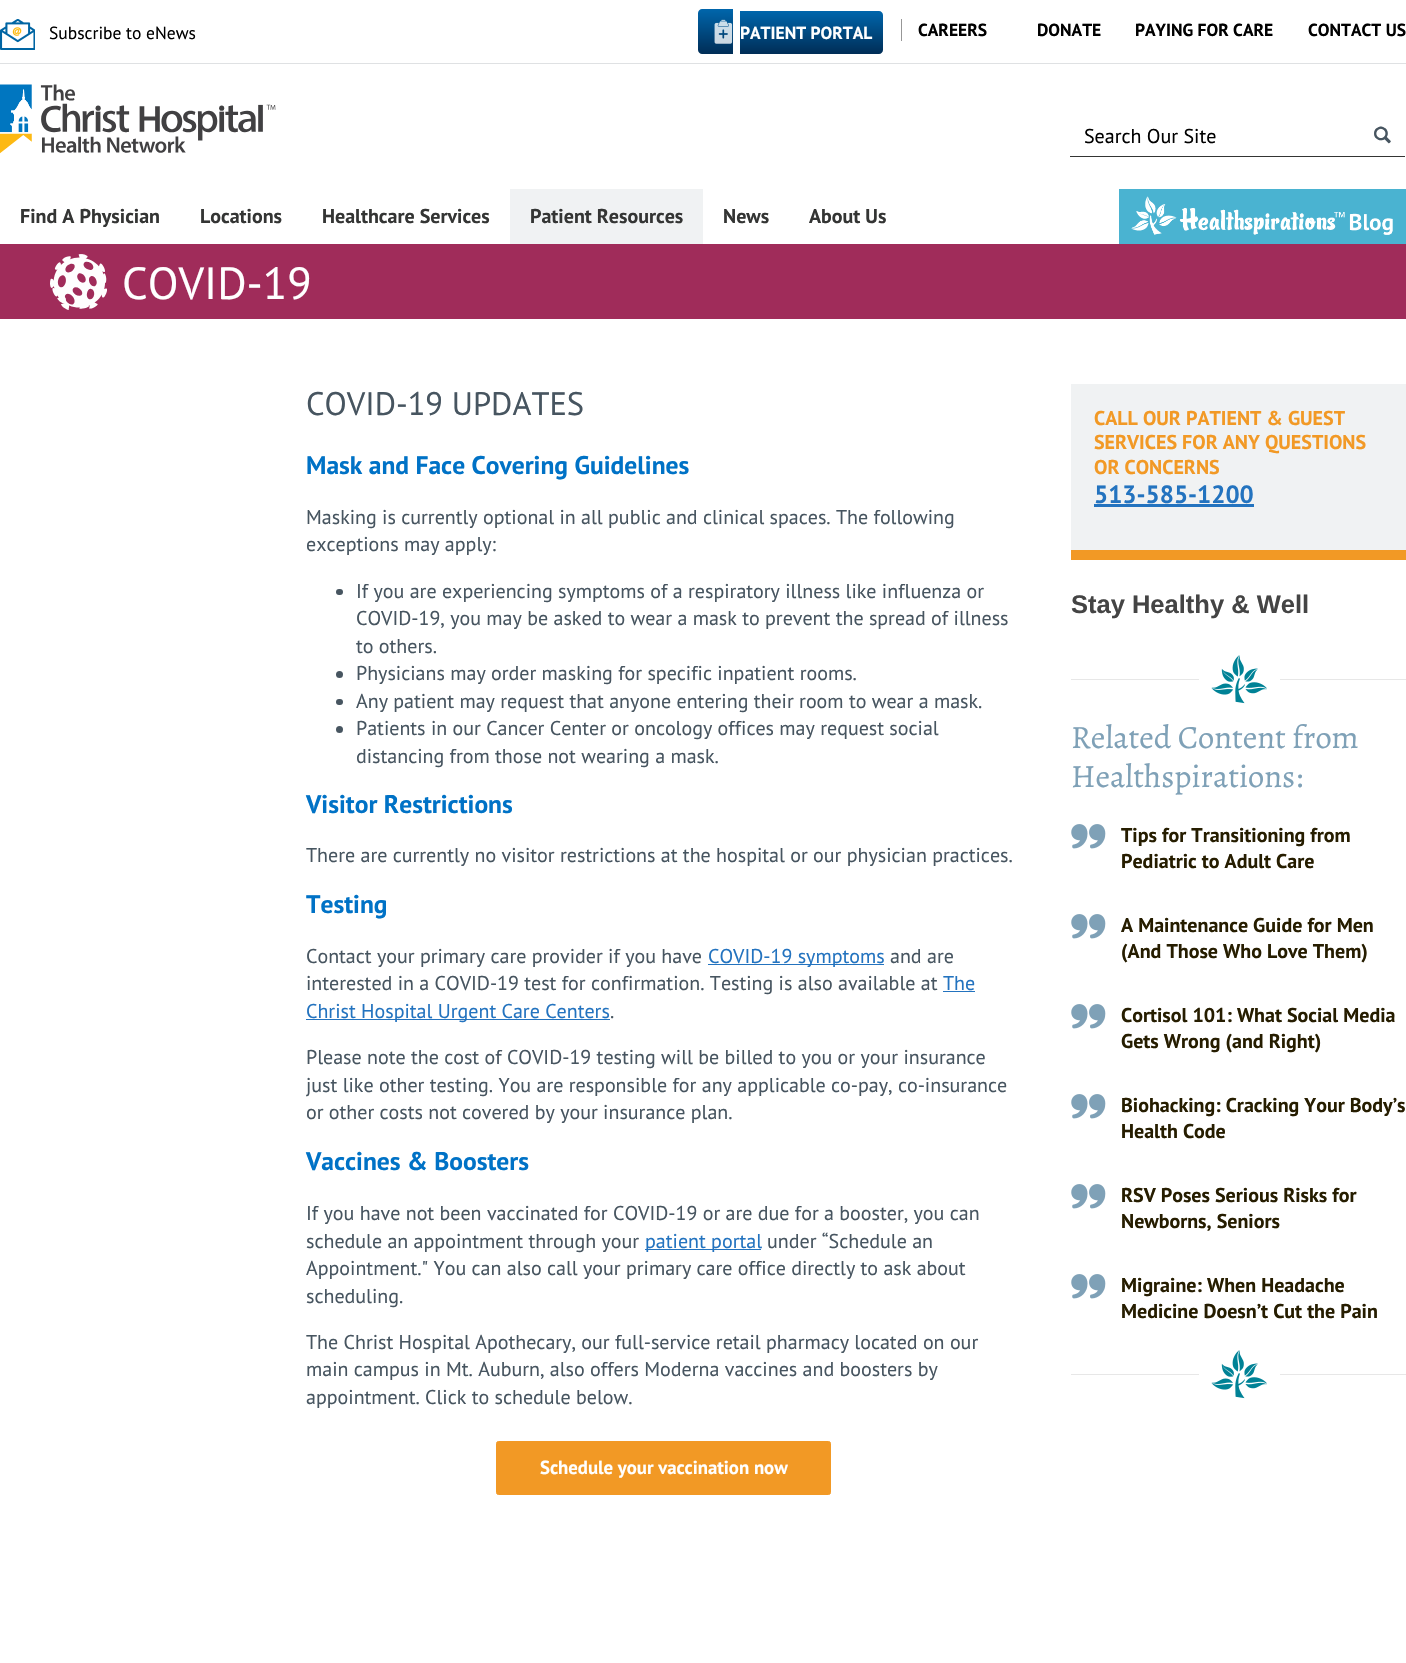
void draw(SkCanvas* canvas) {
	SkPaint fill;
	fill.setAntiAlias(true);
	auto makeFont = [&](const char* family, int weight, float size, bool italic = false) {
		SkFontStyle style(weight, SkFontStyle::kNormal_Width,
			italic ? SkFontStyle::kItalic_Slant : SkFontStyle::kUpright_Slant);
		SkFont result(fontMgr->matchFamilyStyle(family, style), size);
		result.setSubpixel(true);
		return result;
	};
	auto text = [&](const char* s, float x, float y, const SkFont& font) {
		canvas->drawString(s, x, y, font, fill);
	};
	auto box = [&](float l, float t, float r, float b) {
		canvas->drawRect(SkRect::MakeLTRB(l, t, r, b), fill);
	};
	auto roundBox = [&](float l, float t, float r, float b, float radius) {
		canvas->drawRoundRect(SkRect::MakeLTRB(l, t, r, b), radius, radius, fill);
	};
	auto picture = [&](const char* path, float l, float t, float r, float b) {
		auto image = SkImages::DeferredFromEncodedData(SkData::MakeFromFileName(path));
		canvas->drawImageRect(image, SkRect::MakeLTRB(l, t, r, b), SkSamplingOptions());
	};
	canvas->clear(0xFFFFFFFF);
	fill.setColor(0xFFDFE1E3);
	box(0, 63, 1406, 64);
	picture("image0.png", 0, 19, 35, 50);
	{
		const SkColor colors[] = {0xFF0066AC, 0xFF002D56};
		const float stops[] = {0, 1};
		const SkPoint ends[] = {{715, 9}, {715, 54}};
		fill.setShader(SkGradientShader::MakeLinear(ends, colors, stops, 2, SkTileMode::kClamp));
		fill.setAlpha(255);
	}
	canvas->drawPath(SkPathBuilder().moveTo(702, 9).lineTo(733, 9).lineTo(733, 54).lineTo(702, 54).cubicTo(700, 54, 698, 52, 698, 50).lineTo(698, 13).cubicTo(698, 11, 700, 9, 702, 9).close().detach(), fill);
	{
		const SkColor colors[] = {0xFF0066AC, 0xFF002D56};
		const float stops[] = {0, 1};
		const SkPoint ends[] = {{811, 11}, {811, 54}};
		fill.setShader(SkGradientShader::MakeLinear(ends, colors, stops, 2, SkTileMode::kClamp));
		fill.setAlpha(255);
	}
	canvas->drawPath(SkPathBuilder().moveTo(740, 11).lineTo(879, 11).cubicTo(881, 11, 883, 13, 883, 15).lineTo(883, 50).cubicTo(883, 52, 881, 54, 879, 54).lineTo(740, 54).close().detach(), fill);
	picture("image1.png", 714, 19, 733, 44);
	fill.setShader(nullptr);
	fill.setColor(0xFF979797);
	box(901, 19, 902, 41);
	picture("image2.png", 0, 84, 276, 154);
	fill.setColor(0xFF343534);
	box(1070, 156, 1405, 157);
	fill.setColor(0xFFF0F2F3);
	box(510, 189, 703, 244);
	fill.setColor(0xFF4AB3D1);
	box(1119, 189, 1406, 244);
	picture("image3.png", 1131, 196, 1393, 235);
	fill.setColor(0xFFA02C5A);
	box(0, 244, 1406, 319);
	picture("image4.png", 50, 254, 107, 310);
	fill.setColor(0xFF475560);
	roundBox(336, 589, 343, 595, 3);
	canvas->drawCircle(339.5f, 674.5f, 3.5f, fill);
	roundBox(336, 699, 343, 705, 3);
	canvas->drawCircle(339.5f, 729.5f, 3.5f, fill);
	fill.setColor(0xFF2373BF);
	box(708, 964, 884, 965);
	box(943, 991, 975, 992);
	box(306, 1019, 610, 1020);
	box(645, 1249, 761, 1250);
	fill.setColor(0xFFF29925);
	canvas->drawRoundRect(SkRect::MakeLTRB(496.5f, 1441.5f, 830.5f, 1494.5f), 2, 2, fill);
	fill.setStyle(SkPaint::kStroke_Style);
	fill.setStrokeWidth(1);
	canvas->drawRoundRect(SkRect::MakeLTRB(496.5f, 1441.5f, 830.5f, 1494.5f), 2, 2, fill);
	fill.setStyle(SkPaint::kFill_Style);
	fill.setColor(0xFFF0F2F3);
	box(1071, 384, 1406, 550);
	fill.setColor(0xFFF29925);
	box(1071, 550, 1406, 560);
	fill.setColor(0xFF2373BF);
	box(1094, 504, 1254, 507);
	fill.setColor(0xFFE7E7E7);
	box(1071, 679, 1406, 680);
	fill.setColor(0xFFFFFFFF);
	box(1199, 679, 1280, 680);
	picture("image5.png", 1211, 655, 1267, 704);
	picture("image6.png", 1071, 824, 1106, 849);
	picture("image6.png", 1071, 914, 1106, 939);
	picture("image6.png", 1071, 1004, 1106, 1029);
	picture("image6.png", 1071, 1094, 1106, 1119);
	picture("image6.png", 1071, 1184, 1106, 1209);
	picture("image6.png", 1071, 1274, 1106, 1299);
	fill.setColor(0xFFE7E7E7);
	box(1071, 1374, 1406, 1375);
	fill.setColor(0xFFFFFFFF);
	box(1199, 1374, 1280, 1375);
	picture("image5.png", 1211, 1350, 1267, 1399);
	auto font1 = makeFont("PT Sans", 400, 17.5f);
	fill.setColor(0xFF000000);
	text("Subscribe to eNews", 49, 39, font1);
	auto font2 = makeFont("PT Sans", 700, 17.5f);
	fill.setColor(0xFFFFFFFF);
	text("PATIENT PORTAL", 740, 39, font2);
	fill.setColor(0xFF000000);
	text("CAREERS", 918, 36, font2);
	text("DONATE", 1037, 36, font2);
	text("PAYING FOR CARE", 1135, 36, font2);
	text("CONTACT US", 1308, 36, font2);
	auto font3 = makeFont("PT Sans", 400, 20);
	text("Search Our Site", 1084, 143, font3);
	auto font4 = makeFont("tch", 400, 17.5f);
	fill.setColor(0xFF475560);
	text("8", 1374, 143, font4);
	auto font5 = makeFont("PT Sans", 700, 20);
	fill.setColor(0xFF343534);
	text("Find A Physician", 20, 223, font5);
	text("Locations", 200, 223, font5);
	text("Healthcare Services", 322, 223, font5);
	text("Patient Resources", 530, 223, font5);
	text("News", 723, 223, font5);
	text("About Us", 809, 223, font5);
	auto font6 = makeFont("PT Sans", 400, 45);
	fill.setColor(0xFFFFFFFF);
	text("COVID-19", 122, 299, font6);
	auto font7 = makeFont("PT Sans", 400, 32.5f);
	fill.setColor(0xFF475560);
	text("COVID-19 UPDATES", 306, 415, font7);
	auto font8 = makeFont("PT Sans", 700, 25.5f);
	fill.setColor(0xFF0072C6);
	text("Mask and Face Covering Guidelines", 306, 474, font8);
	fill.setColor(0xFF475560);
	text("Masking is currently optional in all public and clinical spaces. The following", 306, 524, font3);
	text("exceptions may apply:", 306, 551, font3);
	text("If you are experiencing symptoms of a respiratory illness like influenza or", 356, 598, font3);
	text("COVID-19, you may be asked to wear a mask to prevent the spread of illness", 356, 625, font3);
	text("to others.", 356, 653, font3);
	text("Physicians may order masking for specific inpatient rooms.", 356, 680, font3);
	text("Any patient may request that anyone entering their room to wear a mask.", 356, 708, font3);
	text("Patients in our Cancer Center or oncology offices may request social", 356, 735, font3);
	text("distancing from those not wearing a mask.", 356, 763, font3);
	fill.setColor(0xFF0072C6);
	text("Visitor Restrictions", 306, 813, font8);
	fill.setColor(0xFF475560);
	text("There are currently no visitor restrictions at the hospital or our physician practices.", 306, 862, font3);
	fill.setColor(0xFF0072C6);
	text("Testing", 306, 913, font8);
	fill.setColor(0xFF475560);
	text("Contact your primary care provider if you have", 306, 963, font3);
	fill.setColor(0xFF2373BF);
	text("COVID-19 symptoms", 708, 963, font3);
	fill.setColor(0xFF475560);
	text("and are", 890, 963, font3);
	text("interested in a COVID-19 test for confirmation. Testing is also available at", 306, 990, font3);
	fill.setColor(0xFF2373BF);
	text("The", 943, 990, font3);
	text("Christ Hospital Urgent Care Centers", 306, 1018, font3);
	fill.setColor(0xFF475560);
	text(".", 610, 1018, font3);
	text("Please note the cost of COVID-19 testing will be billed to you or your insurance", 306, 1064, font3);
	text("just like other testing. You are responsible for any applicable co-pay, co-insurance", 306, 1092, font3);
	text("or other costs not covered by your insurance plan.", 306, 1119, font3);
	fill.setColor(0xFF0072C6);
	text("Vaccines & Boosters", 306, 1170, font8);
	fill.setColor(0xFF475560);
	text("If you have not been vaccinated for COVID-19 or are due for a booster, you can", 306, 1220, font3);
	text("schedule an appointment through your", 306, 1248, font3);
	fill.setColor(0xFF2373BF);
	text("patient portal", 645, 1248, font3);
	fill.setColor(0xFF475560);
	text("under “Schedule an", 767, 1248, font3);
	text("Appointment.\" You can also call your primary care office directly to ask about", 306, 1275, font3);
	text("scheduling.", 306, 1303, font3);
	text("The Christ Hospital Apothecary, our full-service retail pharmacy located on our", 306, 1349, font3);
	text("main campus in Mt. Auburn, also offers Moderna vaccines and boosters by", 306, 1376, font3);
	text("appointment. Click to schedule below.", 306, 1404, font3);
	auto font9 = makeFont("PT Sans", 700, 18.75f);
	fill.setColor(0xFFFFFFFF);
	text("Schedule your vaccination now", 540, 1474, font9);
	fill.setColor(0xFFF29925);
	text("CALL OUR PATIENT & GUEST", 1094, 425, font5);
	text("SERVICES FOR ANY QUESTIONS", 1094, 449, font5);
	text("OR CONCERNS", 1094, 474, font5);
	auto font10 = makeFont("PT Sans", 700, 25);
	fill.setColor(0xFF2373BF);
	text("513-585-1200", 1094, 503, font10);
	auto font11 = makeFont("Liberation Sans", 700, 25.5f);
	fill.setColor(0xFF444444);
	text("Stay Healthy & Well", 1071, 613, font11);
	auto font12 = makeFont("Alegreya", 400, 32.5f);
	fill.setColor(0xFF7FA1B7);
	text("Related Content from", 1071, 748, font12);
	text("Healthspirations:", 1071, 787, font12);
	fill.setColor(0xFF261D00);
	text("Tips for Transitioning from", 1121, 842, font5);
	text("Pediatric to Adult Care", 1121, 868, font5);
	text("A Maintenance Guide for Men", 1121, 932, font5);
	text("(And Those Who Love Them)", 1121, 958, font5);
	text("Cortisol 101: What Social Media", 1121, 1022, font5);
	text("Gets Wrong (and Right)", 1121, 1048, font5);
	text("Biohacking: Cracking Your Body’s", 1121, 1112, font5);
	text("Health Code", 1121, 1138, font5);
	text("RSV Poses Serious Risks for", 1121, 1202, font5);
	text("Newborns, Seniors", 1121, 1228, font5);
	text("Migraine: When Headache", 1121, 1292, font5);
	text("Medicine Doesn’t Cut the Pain", 1121, 1318, font5);
}
